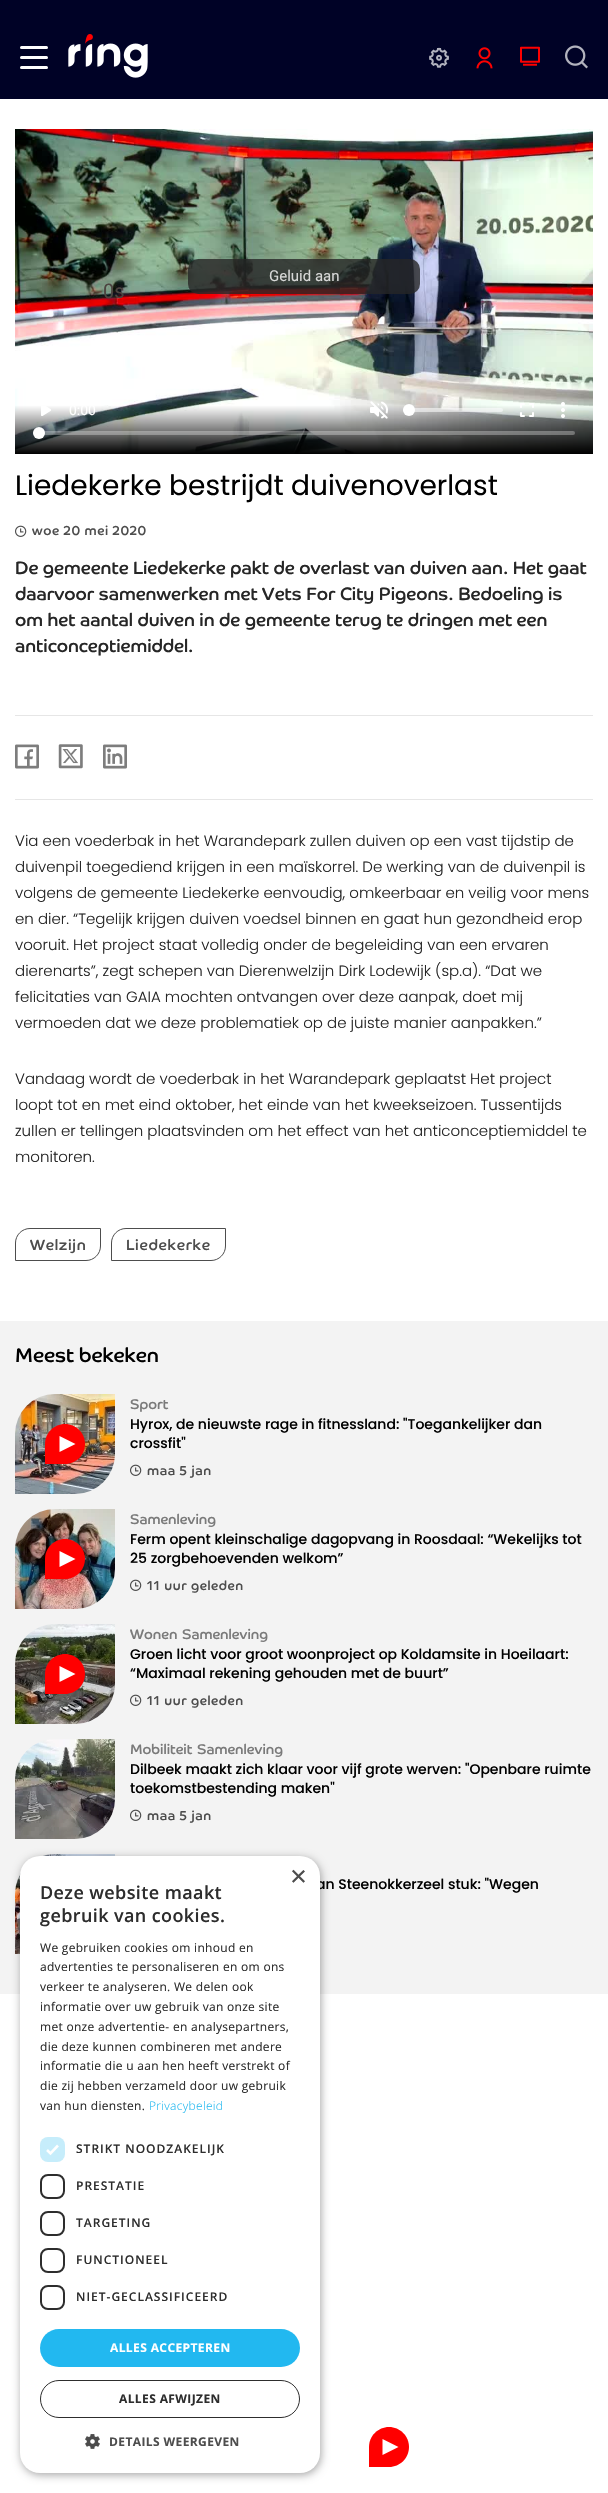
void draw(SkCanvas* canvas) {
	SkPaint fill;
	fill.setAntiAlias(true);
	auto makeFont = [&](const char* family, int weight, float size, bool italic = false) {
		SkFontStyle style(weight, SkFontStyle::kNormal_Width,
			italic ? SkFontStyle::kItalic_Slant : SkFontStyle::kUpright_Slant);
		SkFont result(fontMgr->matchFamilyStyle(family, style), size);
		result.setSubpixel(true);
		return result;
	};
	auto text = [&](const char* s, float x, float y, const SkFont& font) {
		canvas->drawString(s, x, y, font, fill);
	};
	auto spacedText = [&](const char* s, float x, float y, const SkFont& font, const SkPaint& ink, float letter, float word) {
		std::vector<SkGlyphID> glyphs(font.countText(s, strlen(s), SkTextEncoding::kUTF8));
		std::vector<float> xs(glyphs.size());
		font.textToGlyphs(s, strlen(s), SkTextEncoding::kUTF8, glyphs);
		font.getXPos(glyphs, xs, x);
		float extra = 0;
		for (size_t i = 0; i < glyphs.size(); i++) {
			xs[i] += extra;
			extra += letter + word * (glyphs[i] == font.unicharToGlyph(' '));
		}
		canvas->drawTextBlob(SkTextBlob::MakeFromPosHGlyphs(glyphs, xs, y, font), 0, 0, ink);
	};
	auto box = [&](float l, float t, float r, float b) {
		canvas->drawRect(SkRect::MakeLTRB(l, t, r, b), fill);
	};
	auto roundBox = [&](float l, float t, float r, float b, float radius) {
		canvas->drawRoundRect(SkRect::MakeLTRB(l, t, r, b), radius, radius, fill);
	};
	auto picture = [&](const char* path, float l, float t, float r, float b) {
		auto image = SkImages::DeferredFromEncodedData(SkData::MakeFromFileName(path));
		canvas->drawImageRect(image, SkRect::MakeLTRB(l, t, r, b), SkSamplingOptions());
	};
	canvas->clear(0xFFFFFFFF);
	fill.setColor(0xFF000226);
	box(0, 0, 608, 99);
	fill.setColor(0xFFFFFFFF);
	roundBox(20, 56, 48, 59, 1.5f);
	roundBox(20, 46, 48, 49, 1.5f);
	roundBox(20, 66, 48, 69, 1.5f);
	picture("image0.png", 68, 34, 148, 78);
	picture("image1.png", 429, 47, 449, 68);
	picture("image2.png", 476, 47, 493, 69);
	picture("image3.png", 520, 46, 540, 66);
	picture("image4.png", 565, 45, 588, 69);
	picture("image5.png", 15, 129, 593, 454);
	fill.setColor(0xCC262626);
	roundBox(188, 259, 420, 294, 10);
	picture("image6.png", 41, 406, 51, 416);
	picture("image7.png", 370, 401, 388, 419);
	fill.setColor(0x8AFFFFFF);
	roundBox(403, 408, 503, 412, 2);
	fill.setColor(0xFFFFFFFF);
	canvas->drawCircle(409, 410, 6, fill);
	picture("image8.png", 520, 403, 534, 417);
	picture("image9.png", 561, 402, 565, 418);
	fill.setColor(0x4DFFFFFF);
	roundBox(33, 431, 575, 435, 2);
	fill.setColor(0xFFFFFFFF);
	canvas->drawCircle(39, 433, 6, fill);
	picture("image10.png", 15, 525, 27, 537);
	fill.setColor(0xFFE6E6E6);
	box(15, 715, 593, 716);
	box(15, 799, 593, 800);
	picture("image11.png", 15, 744, 39, 769);
	picture("image12.png", 58, 744, 83, 769);
	picture("image13.png", 103, 744, 127, 769);
	fill.setStyle(SkPaint::kStroke_Style);
	fill.setStrokeWidth(1);
	fill.setColor(0xFF4D4D4D);
	canvas->drawPath(SkPathBuilder().moveTo(30, 1228.5f).lineTo(100.5f, 1228.5f).lineTo(100.5f, 1246).cubicTo(100.5f, 1254, 94, 1260.5f, 86, 1260.5f).lineTo(15.5f, 1260.5f).lineTo(15.5f, 1243).cubicTo(15.5f, 1235, 22, 1228.5f, 30, 1228.5f).close().detach(), fill);
	canvas->drawPath(SkPathBuilder().moveTo(126, 1228.5f).lineTo(225.5f, 1228.5f).lineTo(225.5f, 1246).cubicTo(225.5f, 1254, 219, 1260.5f, 211, 1260.5f).lineTo(111.5f, 1260.5f).lineTo(111.5f, 1243).cubicTo(111.5f, 1235, 118, 1228.5f, 126, 1228.5f).close().detach(), fill);
	fill.setStyle(SkPaint::kFill_Style);
	fill.setColor(0xFFF3F3F3);
	box(0, 1321, 608, 1994);
	picture("image14.png", 15, 1394, 115, 1494);
	fill.setColor(0xFFFF0000);
	canvas->drawPath(SkPathBuilder().moveTo(65, 1424).cubicTo(76, 1424, 85, 1433, 85, 1444).cubicTo(85, 1455, 76, 1464, 65, 1464).lineTo(45, 1464).lineTo(45, 1444).cubicTo(45, 1433, 54, 1424, 65, 1424).close().detach(), fill);
	fill.setColor(0xFFFFFFFF);
	canvas->drawPath(SkPathBuilder().moveTo(59.5f, 1452).lineTo(59.5f, 1436).lineTo(75.5f, 1444).close().detach(), fill);
	picture("image15.png", 130, 1464, 142, 1476);
	picture("image16.png", 15, 1509, 115, 1609);
	fill.setColor(0xFFFF0000);
	canvas->drawPath(SkPathBuilder().moveTo(65, 1539).cubicTo(76, 1539, 85, 1548, 85, 1559).cubicTo(85, 1570, 76, 1579, 65, 1579).lineTo(45, 1579).lineTo(45, 1559).cubicTo(45, 1548, 54, 1539, 65, 1539).close().detach(), fill);
	fill.setColor(0xFFFFFFFF);
	canvas->drawPath(SkPathBuilder().moveTo(59.5f, 1567).lineTo(59.5f, 1551).lineTo(75.5f, 1559).close().detach(), fill);
	picture("image15.png", 130, 1579, 142, 1591);
	picture("image17.png", 15, 1624, 115, 1724);
	fill.setColor(0xFFFF0000);
	canvas->drawPath(SkPathBuilder().moveTo(65, 1654).cubicTo(76, 1654, 85, 1663, 85, 1674).cubicTo(85, 1685, 76, 1694, 65, 1694).lineTo(45, 1694).lineTo(45, 1674).cubicTo(45, 1663, 54, 1654, 65, 1654).close().detach(), fill);
	fill.setColor(0xFFFFFFFF);
	canvas->drawPath(SkPathBuilder().moveTo(59.5f, 1682).lineTo(59.5f, 1666).lineTo(75.5f, 1674).close().detach(), fill);
	picture("image15.png", 130, 1694, 142, 1706);
	picture("image18.png", 15, 1739, 115, 1839);
	picture("image15.png", 130, 1809, 142, 1821);
	picture("image19.png", 15, 1854, 115, 1954);
	fill.setColor(0xFFFF0000);
	canvas->drawPath(SkPathBuilder().moveTo(389, 2427).cubicTo(400, 2427, 409, 2436, 409, 2447).cubicTo(409, 2458, 400, 2467, 389, 2467).lineTo(369, 2467).lineTo(369, 2447).cubicTo(369, 2436, 378, 2427, 389, 2427).close().detach(), fill);
	fill.setColor(0xFFFFFFFF);
	canvas->drawPath(SkPathBuilder().moveTo(382.5f, 2455).lineTo(382.5f, 2439).lineTo(398.5f, 2447).close().detach(), fill);
	fill.setColor(0x59000000);
	fill.setMaskFilter(SkMaskFilter::MakeBlur(kNormal_SkBlurStyle, 4));
	canvas->drawRoundRect(SkRect::MakeLTRB(21, 1858, 321, 2475), 20, 20, fill);
	fill.setMaskFilter(nullptr);
	auto font1 = makeFont("Roboto", 400, 15);
	fill.setColor(0xFFD7D8D7);
	text("Geluid aan", 269, 281, font1);
	auto font2 = makeFont("Roboto", 400, 20);
	fill.setColor(0xFF4C4440);
	text("0s", 103, 298, font2);
	auto font3 = makeFont("Roboto", 400, 14);
	fill.setColor(0xFFFFFFFF);
	text("0:00", 69, 415, font3);
	auto font4 = makeFont("Poppins", 400, 28);
	fill.setColor(0xFF000000);
	text("Liedekerke bestrijdt duivenoverlast", 15, 495, font4);
	auto font5 = makeFont("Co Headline", 400, 13);
	fill.setColor(0xFF4D4D4D);
	spacedText("woe 20 mei 2020", 32, 535, font5, fill, 0.6f, 0);
	auto font6 = makeFont("Co Headline", 400, 18);
	fill.setColor(0xFF262626);
	text("De gemeente Liedekerke pakt de overlast van duiven aan. Het gaat", 15, 574, font6);
	text("daarvoor samenwerken met Vets For City Pigeons. Bedoeling is", 15, 600, font6);
	text("om het aantal duiven in de gemeente terug te dringen met een", 15, 626, font6);
	text("anticonceptiemiddel.", 15, 652, font6);
	auto font7 = makeFont("Poppins", 300, 15);
	text("Via een voederbak in het Warandepark zullen duiven op een vast tijdstip de", 15, 846, font7);
	text("duivenpil toegediend krijgen in een maïskorrel. De werking van de duivenpil is", 15, 872, font7);
	text("volgens de gemeente Liedekerke eenvoudig, omkeerbaar en veilig voor mens", 15, 898, font7);
	text("en dier. “Tegelijk krijgen duiven voedsel binnen en gaat hun gezondheid erop", 15, 924, font7);
	text("vooruit. Het project staat volledig onder de begeleiding van een ervaren", 15, 950, font7);
	text("dierenarts”, zegt schepen van Dierenwelzijn Dirk Lodewijk (sp.a). “Dat we", 15, 976, font7);
	text("felicitaties van GAIA mochten ontvangen over deze aanpak, doet mij", 15, 1002, font7);
	text("vermoeden dat we deze problematiek op de juiste manier aanpakken.”", 15, 1028, font7);
	text("Vandaag wordt de voederbak in het Warandepark geplaatst Het project", 15, 1084, font7);
	text("loopt tot en met eind oktober, het einde van het kweekseizoen. Tussentijds", 15, 1110, font7);
	text("zullen er tellingen plaatsvinden om het effect van het anticonceptiemiddel te", 15, 1136, font7);
	text("monitoren.", 15, 1162, font7);
	auto font8 = makeFont("Co Headline", 400, 15);
	fill.setColor(0xFF4D4D4D);
	spacedText("Welzijn", 30, 1250, font8, fill, 0.75f, 0);
	spacedText("Liedekerke", 126, 1250, font8, fill, 0.75f, 0);
	auto font9 = makeFont("Co Headline", 400, 20);
	fill.setColor(0xFF000000);
	text("Meest bekeken", 15, 1362, font9);
	auto font10 = makeFont("Co Headline", 400, 14);
	fill.setColor(0xFF7A7A7A);
	text("Sport", 130, 1409, font10);
	auto font11 = makeFont("Poppins", 500, 14);
	fill.setColor(0xFF000000);
	text("Hyrox, de nieuwste rage in fitnessland: \"Toegankelijker dan", 130, 1429, font11);
	text("crossfit\"", 130, 1448, font11);
	fill.setColor(0xFF4D4D4D);
	spacedText("maa 5 jan", 147, 1475, font5, fill, 0.6f, 0);
	fill.setColor(0xFF7A7A7A);
	text("Samenleving", 130, 1524, font10);
	fill.setColor(0xFF000000);
	text("Ferm opent kleinschalige dagopvang in Roosdaal: “Wekelijks tot", 130, 1544, font11);
	text("25 zorgbehoevenden welkom”", 130, 1563, font11);
	fill.setColor(0xFF4D4D4D);
	spacedText("11 uur geleden", 147, 1590, font5, fill, 0.6f, 0);
	fill.setColor(0xFF7A7A7A);
	text("Wonen", 130, 1639, font10);
	text("Samenleving", 182, 1639, font10);
	fill.setColor(0xFF000000);
	text("Groen licht voor groot woonproject op Koldamsite in Hoeilaart:", 130, 1659, font11);
	text("“Maximaal rekening gehouden met de buurt”", 130, 1678, font11);
	fill.setColor(0xFF4D4D4D);
	spacedText("11 uur geleden", 147, 1705, font5, fill, 0.6f, 0);
	fill.setColor(0xFF7A7A7A);
	text("Mobiliteit", 130, 1754, font10);
	text("Samenleving", 197, 1754, font10);
	fill.setColor(0xFF000000);
	text("Dilbeek maakt zich klaar voor vijf grote werven: \"Openbare ruimte", 130, 1774, font11);
	text("toekomstbestending maken\"", 130, 1793, font11);
	fill.setColor(0xFF4D4D4D);
	spacedText("maa 5 jan", 147, 1820, font5, fill, 0.6f, 0);
	fill.setColor(0xFF000000);
	text("an Steenokkerzeel stuk: \"Wegen", 316, 1889, font11);
	fill.setColor(0xFFFFFFFF);
	roundBox(20, 1856, 320, 2473, 20);
	auto font12 = makeFont("Liberation Sans", 400, 29);
	fill.setColor(0xFF4D4D4D);
	text("×", 290, 1886, font12);
	auto font13 = makeFont("Open Sans", 600, 18);
	fill.setColor(0xFF2D2D2D);
	spacedText("Deze website maakt", 40, 1899, font13, fill, 0.4f, 0);
	spacedText("gebruik van cookies.", 40, 1922, font13, fill, 0.4f, 0);
	auto font14 = makeFont("Open Sans", 400, 12);
	spacedText("We gebruiken cookies om inhoud en", 40, 1952, font14, fill, 0.3f, 0);
	spacedText("advertenties te personaliseren en om ons", 40, 1971, font14, fill, 0.3f, 0);
	spacedText("verkeer te analyseren. We delen ook", 40, 1991, font14, fill, 0.3f, 0);
	spacedText("informatie over uw gebruik van onze site", 40, 2011, font14, fill, 0.3f, 0);
	spacedText("met onze advertentie- en analysepartners,", 40, 2031, font14, fill, 0.3f, 0);
	spacedText("die deze kunnen combineren met andere", 40, 2051, font14, fill, 0.3f, 0);
	spacedText("informatie die u aan hen heeft verstrekt of", 40, 2070, font14, fill, 0.3f, 0);
	spacedText("die zij hebben verzameld door uw gebruik", 40, 2090, font14, fill, 0.3f, 0);
	spacedText("van hun diensten.", 40, 2110, font14, fill, 0.3f, 0);
	auto font15 = makeFont("Open Sans", 300, 12);
	fill.setColor(0xFF22B8F0);
	spacedText("Privacybeleid", 149, 2110, font15, fill, 0.3f, 0);
	fill.setColor(0xFFC6EDFB);
	roundBox(40, 2137, 65, 2162, 8);
	fill.setStyle(SkPaint::kStroke_Style);
	fill.setStrokeWidth(2.6f);
	fill.setColor(0xFFFFFFFF);
	canvas->drawPath(SkPathBuilder().moveTo(47, 2150).lineTo(50.5f, 2153.5f).lineTo(58, 2145.5f).detach(), fill);
	auto font16 = makeFont("Open Sans", 600, 12);
	fill.setStyle(SkPaint::kFill_Style);
	fill.setColor(0xFF2D2D2D);
	spacedText("STRIKT NOODZAKELIJK", 76, 2153, font16, fill, 1, 0);
	fill.setStyle(SkPaint::kStroke_Style);
	fill.setStrokeWidth(2);
	canvas->drawRoundRect(SkRect::MakeLTRB(41, 2175, 64, 2198), 7, 7, fill);
	fill.setStyle(SkPaint::kFill_Style);
	spacedText("PRESTATIE", 76, 2190, font16, fill, 1, 0);
	fill.setStyle(SkPaint::kStroke_Style);
	canvas->drawRoundRect(SkRect::MakeLTRB(41, 2212, 64, 2235), 7, 7, fill);
	fill.setStyle(SkPaint::kFill_Style);
	spacedText("TARGETING", 76, 2227, font16, fill, 1, 0);
	fill.setStyle(SkPaint::kStroke_Style);
	canvas->drawRoundRect(SkRect::MakeLTRB(41, 2249, 64, 2272), 7, 7, fill);
	fill.setStyle(SkPaint::kFill_Style);
	spacedText("FUNCTIONEEL", 76, 2264, font16, fill, 1, 0);
	fill.setStyle(SkPaint::kStroke_Style);
	canvas->drawRoundRect(SkRect::MakeLTRB(41, 2286, 64, 2309), 7, 7, fill);
	fill.setStyle(SkPaint::kFill_Style);
	spacedText("NIET-GECLASSIFICEERD", 76, 2301, font16, fill, 1, 0);
	fill.setColor(0xFF22B8F0);
	roundBox(40, 2329, 300, 2367, 19);
	auto font17 = makeFont("Open Sans", 700, 12);
	fill.setColor(0xFFFFFFFF);
	spacedText("ALLES ACCEPTEREN", 110, 2352, font17, fill, 0.4f, 0);
	fill.setStyle(SkPaint::kStroke_Style);
	fill.setStrokeWidth(1);
	fill.setColor(0xFF2D2D2D);
	canvas->drawRoundRect(SkRect::MakeLTRB(40.5f, 2380.5f, 299.5f, 2417.5f), 18.5f, 18.5f, fill);
	fill.setStyle(SkPaint::kFill_Style);
	spacedText("ALLES AFWIJZEN", 119, 2403, font17, fill, 0.4f, 0);
	picture("image20.png", 85, 2434, 100, 2449);
	fill.setColor(0xFF4D4D4D);
	spacedText("DETAILS WEERGEVEN", 109, 2446, font17, fill, 0.4f, 0);
}
